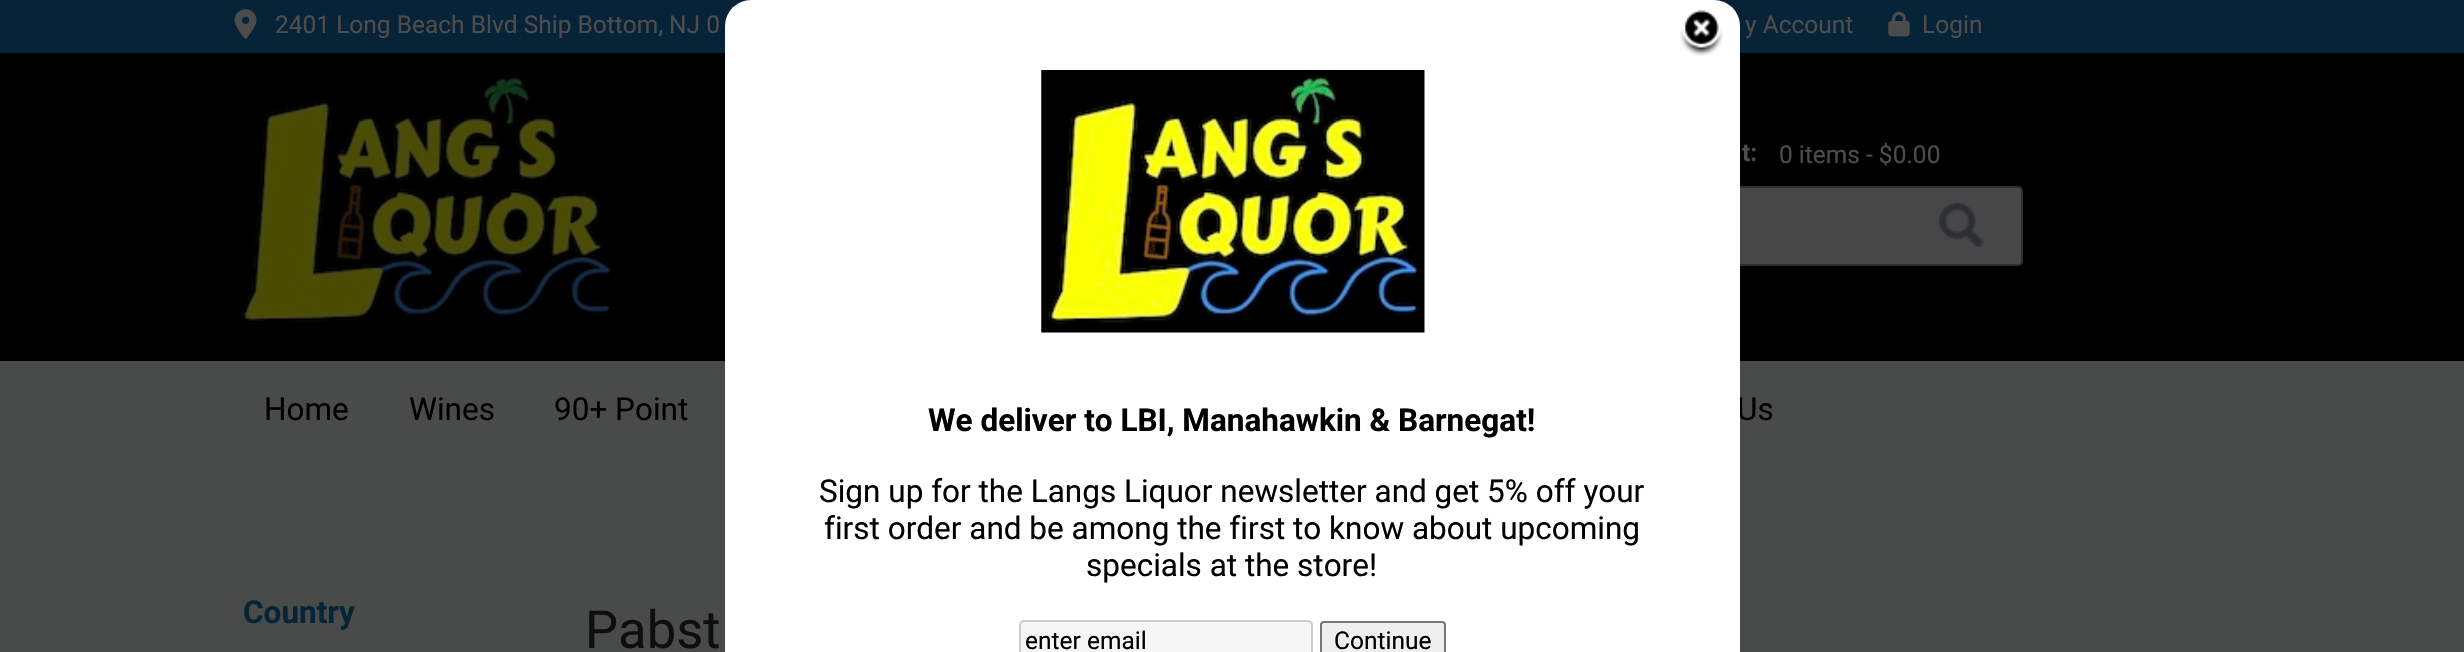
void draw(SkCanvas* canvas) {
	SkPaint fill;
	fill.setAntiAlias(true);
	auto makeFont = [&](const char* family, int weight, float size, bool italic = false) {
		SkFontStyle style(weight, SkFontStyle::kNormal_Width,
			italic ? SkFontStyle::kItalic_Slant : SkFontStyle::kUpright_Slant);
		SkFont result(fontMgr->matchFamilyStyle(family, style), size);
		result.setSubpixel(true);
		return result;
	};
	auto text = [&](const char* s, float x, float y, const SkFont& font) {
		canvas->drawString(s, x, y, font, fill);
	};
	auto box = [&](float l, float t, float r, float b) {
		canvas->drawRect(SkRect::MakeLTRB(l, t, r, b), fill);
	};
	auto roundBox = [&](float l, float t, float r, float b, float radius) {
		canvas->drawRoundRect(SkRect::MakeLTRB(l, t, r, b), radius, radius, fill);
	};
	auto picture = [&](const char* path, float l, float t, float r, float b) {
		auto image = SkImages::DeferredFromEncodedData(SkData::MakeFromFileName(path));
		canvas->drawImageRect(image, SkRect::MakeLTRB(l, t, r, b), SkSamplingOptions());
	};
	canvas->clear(0xFF494A4A);
	fill.setColor(0xFF072338);
	box(0, 0, 2464, 53);
	picture("image0.png", 234, 9, 257, 39);
	fill.setColor(0xFF000000);
	box(0, 53, 2464, 361);
	picture("image1.png", 1888, 11, 1910, 37);
	picture("image2.png", 241, 75, 613, 324);
	fill.setColor(0xFF474747);
	canvas->drawRoundRect(SkRect::MakeLTRB(1373, 187, 2022, 265), 4, 4, fill);
	fill.setStyle(SkPaint::kStroke_Style);
	fill.setStrokeWidth(2);
	fill.setColor(0xFF2E2E2E);
	canvas->drawRoundRect(SkRect::MakeLTRB(1373, 187, 2022, 265), 4, 4, fill);
	picture("image3.png", 1939, 203, 1985, 247);
	auto font1 = makeFont("Roboto", 400, 24.5f);
	fill.setStyle(SkPaint::kFill_Style);
	fill.setColor(0xFF4D4D4D);
	text("2401 Long Beach Blvd Ship Bottom, NJ 0", 275, 33, font1);
	text("y Account", 1745, 33, font1);
	text("Login", 1922, 33, font1);
	auto font2 = makeFont("Roboto", 700, 24.5f);
	text("t:", 1742, 161, font2);
	text("0 items - $0.00", 1779, 163, font1);
	auto font3 = makeFont("Roboto", 400, 31.5f);
	fill.setColor(0xFF000000);
	text("Home", 264, 420, font3);
	text("Wines", 409, 420, font3);
	text("90+ Point", 554, 420, font3);
	text("Us", 1737, 420, font3);
	auto font4 = makeFont("Roboto", 700, 31.5f);
	fill.setColor(0xFF072336);
	text("Country", 243, 623, font4);
	auto font5 = makeFont("Roboto", 400, 52.5f);
	fill.setColor(0xFF0E0E0E);
	text("Pabst", 585, 648, font5);
	fill.setColor(0xFFFFFFFF);
	roundBox(725, 0, 1740, 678, 26);
	picture("image4.png", 1680, 10, 1722, 56);
	picture("image5.png", 1041, 70, 1425, 333);
	fill.setColor(0xFF000000);
	text("We deliver to LBI, Manahawkin & Barnegat!", 928, 431, font4);
	text("Sign up for the Langs Liquor newsletter and get 5% off your", 819, 502, font3);
	text("first order and be among the first to know about upcoming", 824, 539, font3);
	text("specials at the store!", 1086, 576, font3);
	fill.setColor(0xFFF6F6F6);
	canvas->drawRoundRect(SkRect::MakeLTRB(1020, 621, 1312, 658), 4, 4, fill);
	fill.setStyle(SkPaint::kStroke_Style);
	fill.setColor(0xFFCCCCCC);
	canvas->drawRoundRect(SkRect::MakeLTRB(1020, 621, 1312, 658), 4, 4, fill);
	fill.setStyle(SkPaint::kFill_Style);
	fill.setColor(0xFF000000);
	text("enter email", 1025, 649, font1);
	fill.setColor(0xFFEFEFEF);
	canvas->drawRoundRect(SkRect::MakeLTRB(1321, 622, 1445, 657), 3, 3, fill);
	fill.setStyle(SkPaint::kStroke_Style);
	fill.setColor(0xFF767676);
	canvas->drawRoundRect(SkRect::MakeLTRB(1321, 622, 1445, 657), 3, 3, fill);
	fill.setStyle(SkPaint::kFill_Style);
	fill.setColor(0xFF000000);
	text("Continue", 1334, 649, font1);
}
